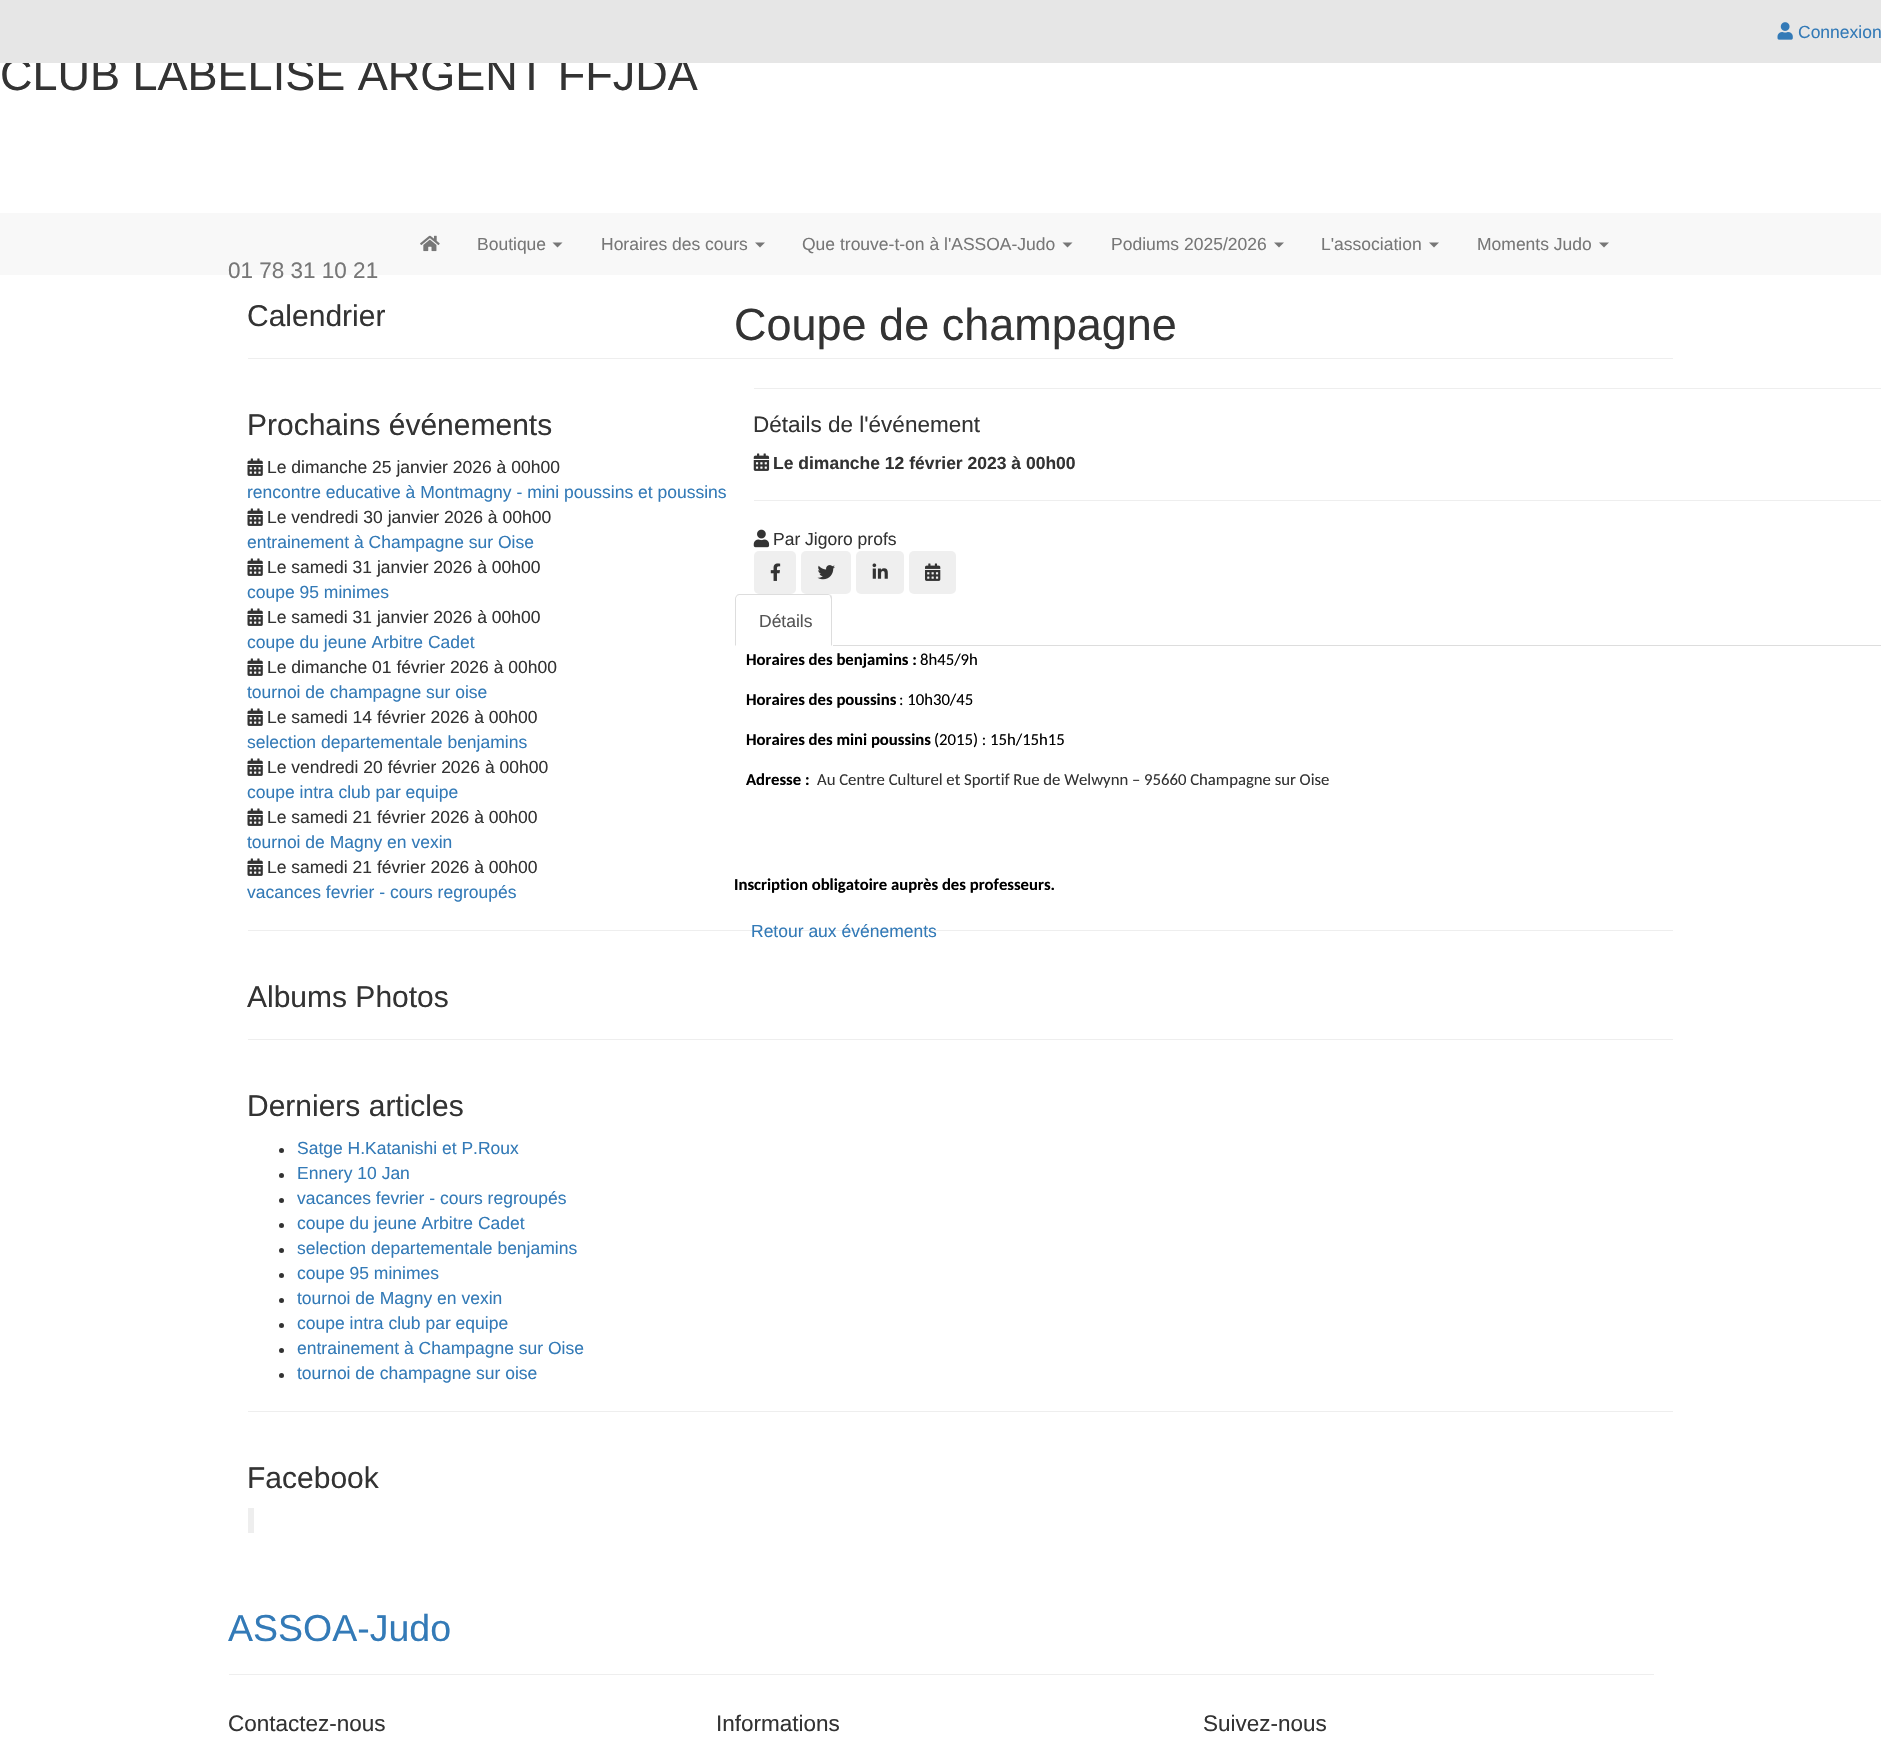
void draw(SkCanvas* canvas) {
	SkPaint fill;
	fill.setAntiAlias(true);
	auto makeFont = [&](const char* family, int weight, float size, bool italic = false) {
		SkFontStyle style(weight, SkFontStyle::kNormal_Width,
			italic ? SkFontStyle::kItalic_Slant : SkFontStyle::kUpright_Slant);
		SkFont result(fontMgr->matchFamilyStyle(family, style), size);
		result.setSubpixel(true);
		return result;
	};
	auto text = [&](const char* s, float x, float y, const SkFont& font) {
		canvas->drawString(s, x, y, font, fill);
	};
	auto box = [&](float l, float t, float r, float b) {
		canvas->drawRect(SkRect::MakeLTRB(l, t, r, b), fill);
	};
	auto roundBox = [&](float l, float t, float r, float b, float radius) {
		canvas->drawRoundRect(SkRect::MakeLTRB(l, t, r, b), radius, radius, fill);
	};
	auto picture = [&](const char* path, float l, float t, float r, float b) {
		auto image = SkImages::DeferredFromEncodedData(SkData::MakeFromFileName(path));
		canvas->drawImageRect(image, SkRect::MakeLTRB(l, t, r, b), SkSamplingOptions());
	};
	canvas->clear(0xFFFFFFFF);
	fill.setColor(0xFFF8F8F8);
	box(0, 213, 1881, 275);
	picture("image1.png", 420, 235, 440, 252);
	fill.setColor(0xFF777777);
	canvas->drawPath(SkPathBuilder().moveTo(552.5f, 242.5f).lineTo(562.5f, 242.5f).lineTo(557.5f, 247.5f).close().detach(), fill);
	canvas->drawPath(SkPathBuilder().moveTo(755, 242.5f).lineTo(765, 242.5f).lineTo(760, 247.5f).close().detach(), fill);
	canvas->drawPath(SkPathBuilder().moveTo(1062.5f, 242.5f).lineTo(1072.5f, 242.5f).lineTo(1067.5f, 247.5f).close().detach(), fill);
	canvas->drawPath(SkPathBuilder().moveTo(1274, 242.5f).lineTo(1284, 242.5f).lineTo(1279, 247.5f).close().detach(), fill);
	canvas->drawPath(SkPathBuilder().moveTo(1429, 242.5f).lineTo(1439, 242.5f).lineTo(1434, 247.5f).close().detach(), fill);
	canvas->drawPath(SkPathBuilder().moveTo(1599, 242.5f).lineTo(1609, 242.5f).lineTo(1604, 247.5f).close().detach(), fill);
	fill.setColor(0xFFEEEEEE);
	box(248, 358, 1673, 359);
	picture("image2.png", 247, 458, 263, 476);
	picture("image2.png", 247, 508, 263, 526);
	picture("image2.png", 247, 558, 263, 576);
	picture("image2.png", 247, 608, 263, 626);
	picture("image2.png", 247, 658, 263, 676);
	picture("image2.png", 247, 708, 263, 726);
	picture("image2.png", 247, 758, 263, 776);
	picture("image2.png", 247, 808, 263, 826);
	picture("image2.png", 247, 858, 263, 876);
	box(248, 930, 1673, 931);
	box(248, 1039, 1673, 1040);
	fill.setColor(0xFF333333);
	canvas->drawCircle(281.5f, 1150.5f, 2.5f, fill);
	canvas->drawCircle(281.5f, 1175.5f, 2.5f, fill);
	canvas->drawCircle(281.5f, 1200.5f, 2.5f, fill);
	canvas->drawCircle(281.5f, 1225.5f, 2.5f, fill);
	canvas->drawCircle(281.5f, 1250.5f, 2.5f, fill);
	canvas->drawCircle(281.5f, 1275.5f, 2.5f, fill);
	canvas->drawCircle(281.5f, 1300.5f, 2.5f, fill);
	canvas->drawCircle(281.5f, 1325.5f, 2.5f, fill);
	canvas->drawCircle(281.5f, 1350.5f, 2.5f, fill);
	canvas->drawCircle(281.5f, 1375.5f, 2.5f, fill);
	fill.setColor(0xFFEEEEEE);
	box(248, 1411, 1673, 1412);
	box(248, 1508, 254, 1533);
	box(754, 388, 1881, 389);
	picture("image3.png", 753, 453, 770, 471);
	box(754, 500, 1881, 501);
	picture("image4.png", 753, 529, 770, 548);
	fill.setColor(0xFFEFEFEF);
	roundBox(754, 551, 796, 594, 5);
	picture("image5.png", 770, 563, 781, 581);
	roundBox(801, 551, 851, 594, 5);
	picture("image6.png", 817, 565, 835, 580);
	roundBox(856, 551, 904, 594, 5);
	picture("image7.png", 872, 563, 888, 579);
	roundBox(909, 551, 956, 594, 5);
	picture("image8.png", 925, 563, 941, 581);
	fill.setColor(0xFFDDDDDD);
	box(833, 645, 1881, 646);
	canvas->drawPath(SkPathBuilder().moveTo(740, 594).cubicTo(739, 594, 737, 594, 737, 595).lineTo(737, 596).cubicTo(738, 595, 739, 595, 740, 595).lineTo(828, 595).cubicTo(829, 595, 830, 595, 830, 596).lineTo(831, 595).cubicTo(830, 595, 829, 594, 828, 594).close().detach(), fill);
	canvas->drawPath(SkPathBuilder().moveTo(832, 646).lineTo(832, 599).cubicTo(832, 598, 832, 596, 831, 595).lineTo(830, 596).lineTo(831, 599).lineTo(831, 645).close().detach(), fill);
	canvas->drawPath(SkPathBuilder().moveTo(735, 599).lineTo(735, 646).lineTo(736, 645).lineTo(736, 598).lineTo(737, 596).lineTo(737, 595).cubicTo(736, 596, 735, 597, 735, 599).close().detach(), fill);
	fill.setColor(0xFFEEEEEE);
	box(229, 1674, 1654, 1675);
	auto font1 = makeFont("Liberation Sans", 400, 45);
	fill.setColor(0xFF333333);
	text("CLUB LABELISÉ ARGENT FFJDA", 0, 90, font1);
	fill.setColor(0xFFE6E6E6);
	box(0, 0, 1881, 63);
	auto font2 = makeFont("Liberation Sans", 400, 17.5f);
	fill.setColor(0xFF337AB7);
	text("Connexion", 1798, 38, font2);
	picture("image0.png", 1777, 22, 1793, 40);
	fill.setColor(0xFF777777);
	text("Boutique", 477, 250, font2);
	text("Horaires des cours", 601, 250, font2);
	text("Que trouve-t-on à l'ASSOA-Judo", 802, 250, font2);
	text("Podiums 2025/2026", 1111, 250, font2);
	text("L'association", 1321, 250, font2);
	text("Moments Judo", 1477, 250, font2);
	auto font3 = makeFont("Liberation Sans", 400, 22.5f);
	text("01 78 31 10 21", 228, 278, font3);
	auto font4 = makeFont("Liberation Sans", 400, 30);
	fill.setColor(0xFF333333);
	text("Calendrier", 247, 326, font4);
	text("Prochains événements", 247, 435, font4);
	text("Le dimanche 25 janvier 2026 à 00h00", 267, 473, font2);
	fill.setColor(0xFF337AB7);
	text("rencontre educative à Montmagny - mini poussins et poussins", 247, 498, font2);
	fill.setColor(0xFF333333);
	text("Le vendredi 30 janvier 2026 à 00h00", 267, 523, font2);
	fill.setColor(0xFF337AB7);
	text("entrainement à Champagne sur Oise", 247, 548, font2);
	fill.setColor(0xFF333333);
	text("Le samedi 31 janvier 2026 à 00h00", 267, 573, font2);
	fill.setColor(0xFF337AB7);
	text("coupe 95 minimes", 247, 598, font2);
	fill.setColor(0xFF333333);
	text("Le samedi 31 janvier 2026 à 00h00", 267, 623, font2);
	fill.setColor(0xFF337AB7);
	text("coupe du jeune Arbitre Cadet", 247, 648, font2);
	fill.setColor(0xFF333333);
	text("Le dimanche 01 février 2026 à 00h00", 267, 673, font2);
	fill.setColor(0xFF337AB7);
	text("tournoi de champagne sur oise", 247, 698, font2);
	fill.setColor(0xFF333333);
	text("Le samedi 14 février 2026 à 00h00", 267, 723, font2);
	fill.setColor(0xFF337AB7);
	text("selection departementale benjamins", 247, 748, font2);
	fill.setColor(0xFF333333);
	text("Le vendredi 20 février 2026 à 00h00", 267, 773, font2);
	fill.setColor(0xFF337AB7);
	text("coupe intra club par equipe", 247, 798, font2);
	fill.setColor(0xFF333333);
	text("Le samedi 21 février 2026 à 00h00", 267, 823, font2);
	fill.setColor(0xFF337AB7);
	text("tournoi de Magny en vexin", 247, 848, font2);
	fill.setColor(0xFF333333);
	text("Le samedi 21 février 2026 à 00h00", 267, 873, font2);
	fill.setColor(0xFF337AB7);
	text("vacances fevrier - cours regroupés", 247, 898, font2);
	fill.setColor(0xFF333333);
	text("Albums Photos", 247, 1007, font4);
	text("Derniers articles", 247, 1116, font4);
	fill.setColor(0xFF337AB7);
	text("Satge H.Katanishi et P.Roux", 297, 1154, font2);
	text("Ennery 10 Jan", 297, 1179, font2);
	text("vacances fevrier - cours regroupés", 297, 1204, font2);
	text("coupe du jeune Arbitre Cadet", 297, 1229, font2);
	text("selection departementale benjamins", 297, 1254, font2);
	text("coupe 95 minimes", 297, 1279, font2);
	text("tournoi de Magny en vexin", 297, 1304, font2);
	text("coupe intra club par equipe", 297, 1329, font2);
	text("entrainement à Champagne sur Oise", 297, 1354, font2);
	text("tournoi de champagne sur oise", 297, 1379, font2);
	fill.setColor(0xFF333333);
	text("Facebook", 247, 1488, font4);
	text("Coupe de champagne", 734, 340, font1);
	text("Détails de l'événement", 753, 432, font3);
	auto font5 = makeFont("Liberation Sans", 700, 17.5f);
	text("Le dimanche 12 février 2023 à 00h00", 773, 469, font5);
	text("Par Jigoro profs", 773, 545, font2);
	fill.setColor(0xFF555555);
	text("Détails", 759, 627, font2);
	auto font6 = makeFont("Carlito", 700, 16.7f);
	fill.setColor(0xFF000000);
	text("Horaires des benjamins :", 746, 665, font6);
	auto font7 = makeFont("Carlito", 400, 16.7f);
	text("8h45/9h", 920, 665, font7);
	text("Horaires des poussins", 746, 705, font6);
	text(": 10h30/45", 899, 705, font7);
	text("Horaires des mini poussins", 746, 745, font6);
	text("(2015) : 15h/15h15", 934, 745, font7);
	text("Adresse :", 746, 785, font6);
	fill.setColor(0xFF333333);
	text("Au Centre Culturel et Sportif Rue de Welwynn – 95660 Champagne sur Oise", 817, 785, font7);
	fill.setColor(0xFF000000);
	text("Inscription obligatoire auprès des professeurs.", 734, 890, font6);
	fill.setColor(0xFF337AB7);
	text("Retour aux événements", 751, 937, font2);
	auto font8 = makeFont("Liberation Sans", 400, 37.5f);
	text("ASSOA-Judo", 228, 1641, font8);
	fill.setColor(0xFF333333);
	text("Contactez-nous", 228, 1731, font3);
	text("Informations", 716, 1731, font3);
	text("Suivez-nous", 1203, 1731, font3);
}
